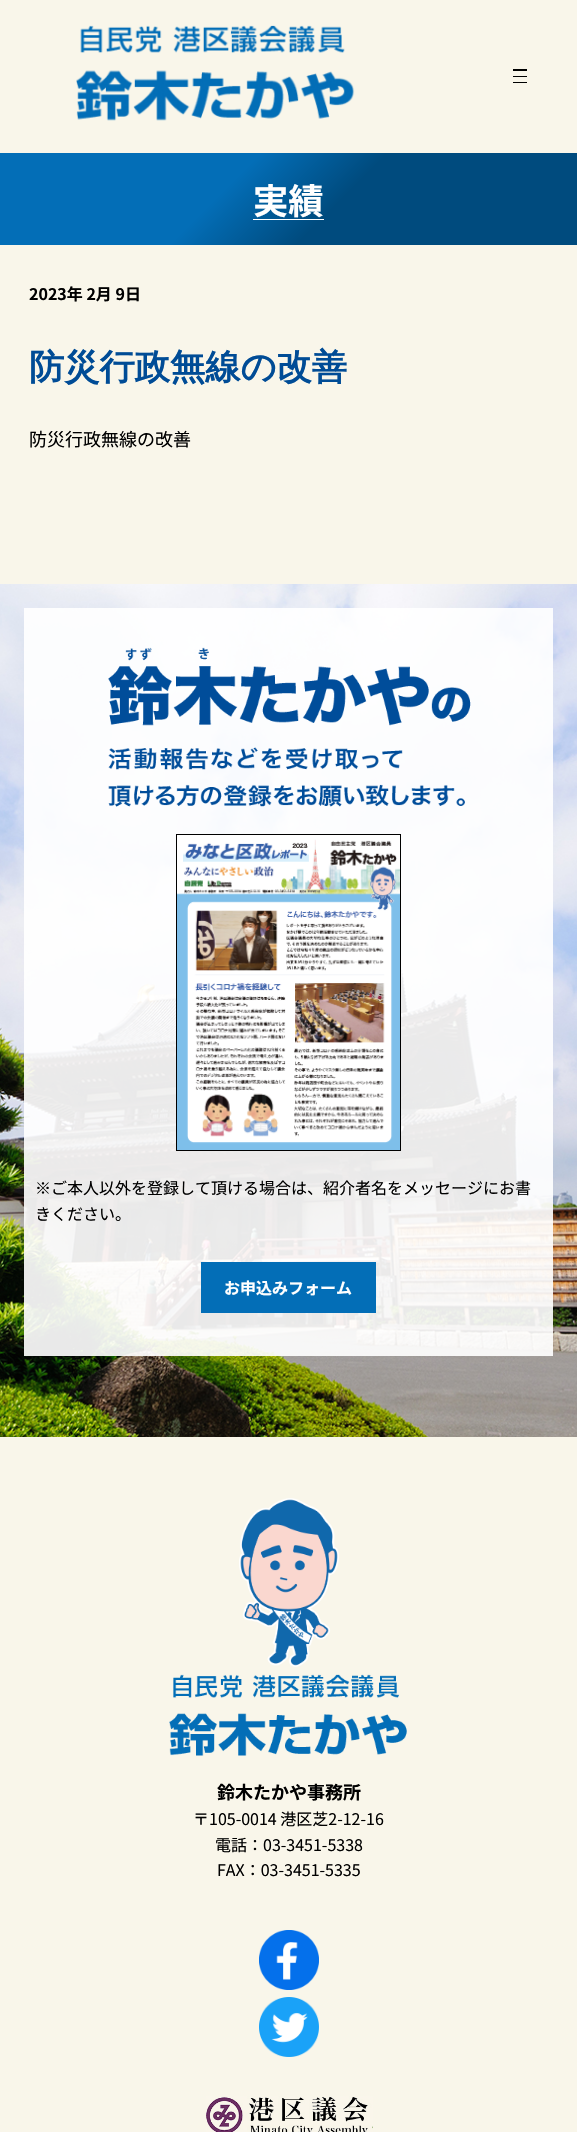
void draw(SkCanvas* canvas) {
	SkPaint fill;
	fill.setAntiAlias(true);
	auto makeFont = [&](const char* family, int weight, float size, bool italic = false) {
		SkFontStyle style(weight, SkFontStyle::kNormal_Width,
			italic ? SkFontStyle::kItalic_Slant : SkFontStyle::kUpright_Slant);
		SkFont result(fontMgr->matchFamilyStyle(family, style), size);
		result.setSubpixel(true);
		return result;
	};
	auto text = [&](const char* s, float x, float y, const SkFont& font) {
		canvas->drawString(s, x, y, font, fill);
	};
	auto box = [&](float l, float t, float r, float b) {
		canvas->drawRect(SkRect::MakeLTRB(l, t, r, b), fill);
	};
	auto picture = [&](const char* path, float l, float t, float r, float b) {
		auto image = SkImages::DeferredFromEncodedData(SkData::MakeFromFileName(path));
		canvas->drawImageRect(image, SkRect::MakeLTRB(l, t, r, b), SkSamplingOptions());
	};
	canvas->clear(0xFFF9F6EA);
	picture("image0.png", 76, 25, 355, 121);
	fill.setColor(0xFF000000);
	box(513, 69, 527, 71);
	box(513, 76, 527, 77);
	box(513, 82, 527, 83);
	{
		const SkColor colors[] = {0xFF036EB7, 0xFF004B7E};
		const float stops[] = {0.39f, 0.58f};
		const SkPoint ends[] = {{121, 32}, {456, 366}};
		fill.setShader(SkGradientShader::MakeLinear(ends, colors, stops, 2, SkTileMode::kClamp));
		fill.setAlpha(255);
	}
	box(0, 153, 577, 245);
	fill.setShader(nullptr);
	fill.setColor(0xFFFFFFFF);
	box(253, 219, 324, 220);
	picture("image1.png", 0, 584, 577, 1437);
	fill.setColor(0xE8FFFFFF);
	box(24, 608, 553, 1356);
	picture("image2.png", 108, 647, 471, 807);
	fill.setStyle(SkPaint::kStroke_Style);
	fill.setStrokeWidth(1);
	fill.setColor(0xFF000000);
	canvas->drawRect(SkRect::MakeLTRB(176.5f, 834.5f, 400.5f, 1150.5f), fill);
	picture("image3.png", 177, 835, 400, 1150);
	fill.setStyle(SkPaint::kFill_Style);
	fill.setColor(0xFF036EB7);
	box(201, 1262, 376, 1313);
	picture("image4.png", 239, 1498, 339, 1667);
	picture("image5.png", 169, 1674, 407, 1756);
	picture("image6.png", 259, 1930, 319, 1990);
	picture("image7.png", 259, 1997, 319, 2057);
	picture("image8.png", 206, 2096, 373, 2132);
	auto font1 = makeFont("Noto Sans JP", 700, 35.25f);
	fill.setColor(0xFFFFFFFF);
	text("実績", 253, 214, font1);
	auto font2 = makeFont("Noto Sans JP", 700, 16);
	fill.setColor(0xFF000000);
	text("2023年 2月 9日", 29, 300, font2);
	auto font3 = makeFont("WenQuanYi Zen Hei", 700, 35.25f);
	fill.setColor(0xFF004C96);
	text("防災行政無線の改善", 29, 379, font3);
	auto font4 = makeFont("Noto Sans JP", 400, 18);
	fill.setColor(0xFF000000);
	text("防災行政無線の改善", 29, 446, font4);
	auto font5 = makeFont("Noto Sans JP", 400, 16);
	text("※ご本人以外を登録して頂ける場合は、紹介者名をメッセージにお書", 35, 1194, font5);
	text("きください。", 35, 1220, font5);
	fill.setColor(0xFFFFFFFF);
	text("お申込みフォーム", 224, 1294, font2);
	auto font6 = makeFont("Noto Sans JP", 700, 18);
	fill.setColor(0xFF000000);
	text("鈴木たかや事務所", 217, 1799, font6);
	text("〒105-0014 港区芝2-12-16", 193, 1825, font5);
	text("電話：03-3451-5338", 215, 1851, font5);
	text("FAX：03-3451-5335", 217, 1876, font5);
}
